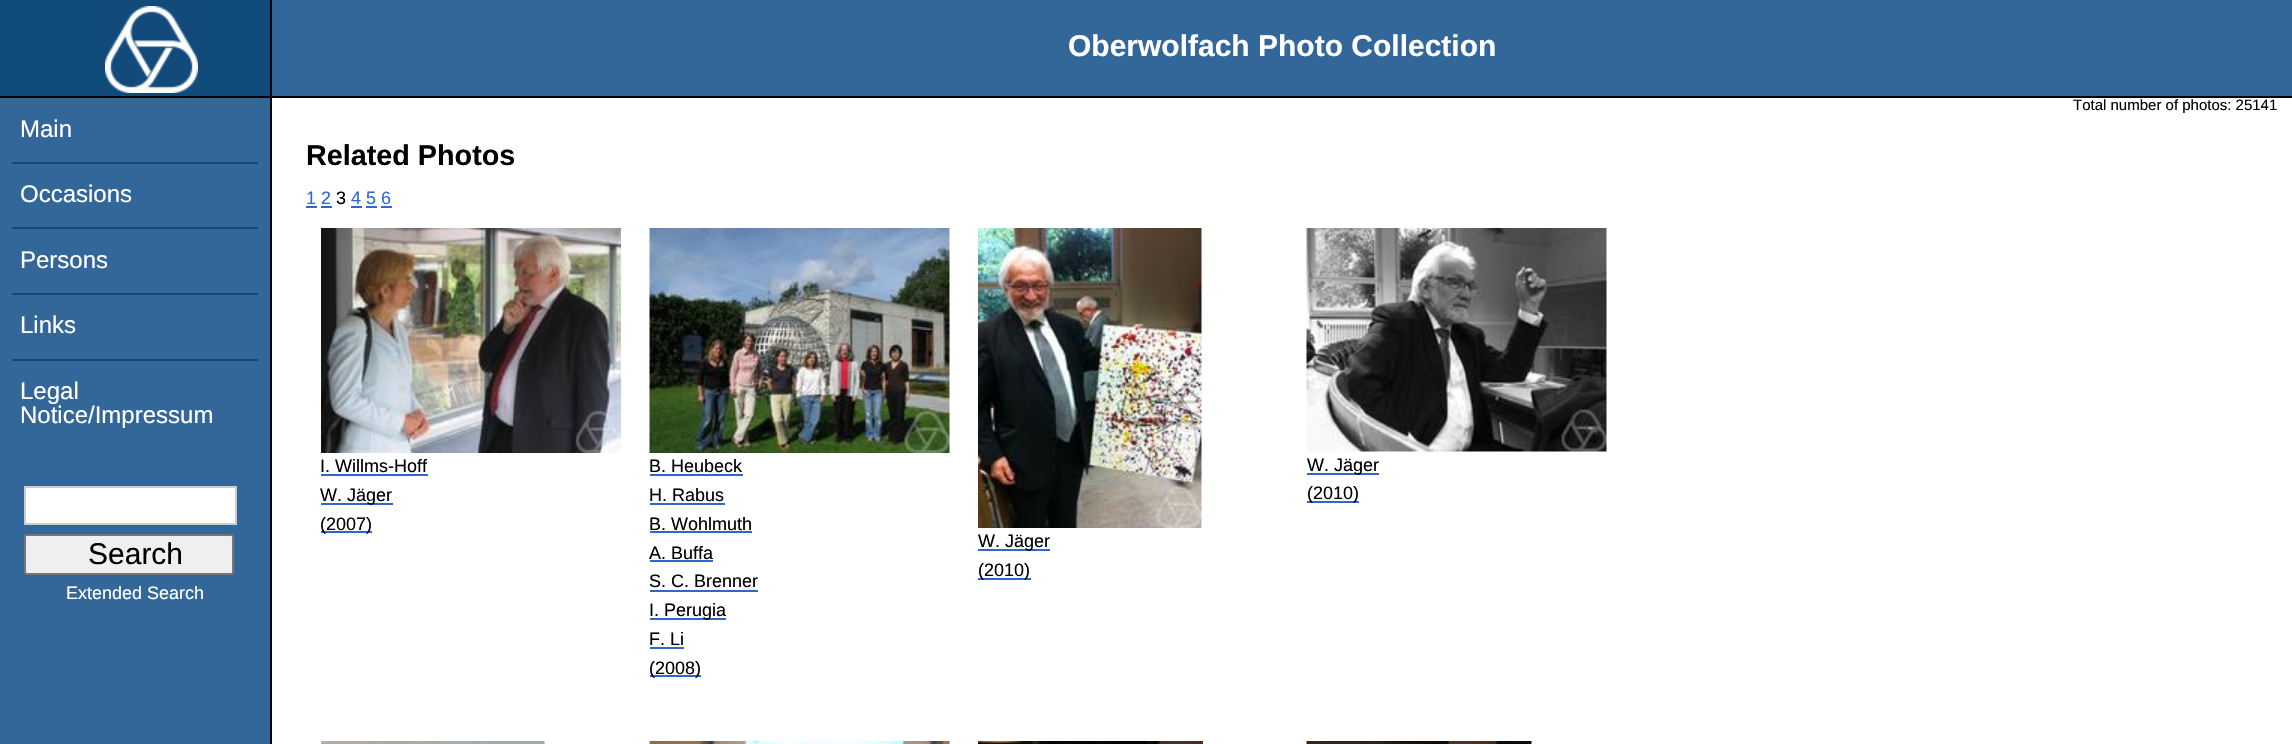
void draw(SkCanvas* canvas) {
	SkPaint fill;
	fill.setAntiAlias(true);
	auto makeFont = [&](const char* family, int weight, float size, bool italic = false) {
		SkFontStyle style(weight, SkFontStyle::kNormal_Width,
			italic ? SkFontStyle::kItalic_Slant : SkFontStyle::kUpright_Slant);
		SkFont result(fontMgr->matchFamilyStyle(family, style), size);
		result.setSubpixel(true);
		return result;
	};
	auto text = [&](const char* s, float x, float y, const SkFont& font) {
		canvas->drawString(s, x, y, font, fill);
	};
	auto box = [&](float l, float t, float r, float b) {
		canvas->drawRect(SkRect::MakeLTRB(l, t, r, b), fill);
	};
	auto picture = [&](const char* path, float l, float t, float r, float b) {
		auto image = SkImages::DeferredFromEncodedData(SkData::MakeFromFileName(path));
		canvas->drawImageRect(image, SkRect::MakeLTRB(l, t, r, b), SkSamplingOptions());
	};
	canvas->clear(0xFFFFFFFF);
	fill.setColor(0xFF336699);
	box(272, 0, 2292, 96);
	fill.setColor(0xFF000000);
	box(0, 96, 2292, 98);
	fill.setColor(0xFF104A7B);
	box(0, 0, 270, 96);
	fill.setColor(0xFF000000);
	box(270, 0, 272, 96);
	picture("image0.png", 105, 6, 198, 93);
	fill.setColor(0xFF336699);
	box(0, 98, 270, 744);
	fill.setColor(0xFF000000);
	box(270, 98, 272, 744);
	fill.setColor(0xFF104A7B);
	box(12, 162, 258, 164);
	box(12, 227, 258, 229);
	box(12, 293, 258, 295);
	box(12, 359, 258, 361);
	fill.setColor(0xFFFFFFFF);
	canvas->drawRect(SkRect::MakeLTRB(25, 487, 236, 524), fill);
	fill.setStyle(SkPaint::kStroke_Style);
	fill.setStrokeWidth(2);
	fill.setColor(0xFFCCCCCC);
	canvas->drawRect(SkRect::MakeLTRB(25, 487, 236, 524), fill);
	fill.setStyle(SkPaint::kFill_Style);
	fill.setColor(0xFFEFEFEF);
	canvas->drawRoundRect(SkRect::MakeLTRB(25, 535, 233, 574), 2, 2, fill);
	fill.setStyle(SkPaint::kStroke_Style);
	fill.setColor(0xFF767676);
	canvas->drawRoundRect(SkRect::MakeLTRB(25, 535, 233, 574), 2, 2, fill);
	fill.setStyle(SkPaint::kFill_Style);
	fill.setColor(0xFF3366CC);
	box(306, 206, 317, 208);
	box(351, 206, 362, 208);
	box(321, 206, 332, 208);
	box(366, 206, 377, 208);
	box(381, 206, 392, 208);
	picture("image1.png", 321, 228, 621, 453);
	box(321, 474, 428, 476);
	box(321, 503, 393, 505);
	box(321, 531, 372, 533);
	picture("image2.png", 649, 228, 950, 453);
	box(650, 474, 743, 476);
	box(650, 503, 725, 505);
	box(650, 531, 752, 533);
	box(650, 560, 713, 562);
	box(650, 590, 758, 592);
	box(650, 618, 726, 620);
	box(650, 647, 684, 649);
	box(650, 675, 701, 677);
	picture("image3.png", 1306, 228, 1607, 452);
	box(1307, 473, 1379, 475);
	box(1307, 501, 1359, 503);
	picture("image4.png", 978, 228, 1202, 528);
	box(978, 549, 1050, 551);
	box(978, 578, 1031, 580);
	picture("image5.png", 321, 741, 545, 744);
	picture("image6.png", 649, 741, 950, 744);
	picture("image7.png", 978, 741, 1203, 744);
	picture("image8.png", 1306, 741, 1532, 744);
	auto font1 = makeFont("Liberation Sans", 700, 30);
	fill.setColor(0xFFFFFFFF);
	text("Oberwolfach Photo Collection", 1068, 56, font1);
	auto font2 = makeFont("Liberation Sans", 400, 15);
	fill.setColor(0xFF000000);
	text("Total number of photos: 25141", 2073, 110, font2);
	auto font3 = makeFont("Liberation Sans", 400, 24);
	fill.setColor(0xFFFFFFFF);
	text("Main", 20, 137, font3);
	text("Occasions", 20, 202, font3);
	text("Persons", 20, 268, font3);
	text("Links", 20, 333, font3);
	text("Legal", 20, 399, font3);
	text("Notice/Impressum", 20, 423, font3);
	auto font4 = makeFont("Liberation Sans", 400, 30);
	fill.setColor(0xFF000000);
	text("Search", 88, 564, font4);
	auto font5 = makeFont("Liberation Sans", 400, 18);
	fill.setColor(0xFFFFFFFF);
	text("Extended Search", 66, 599, font5);
	auto font6 = makeFont("Liberation Sans", 700, 28.75f);
	fill.setColor(0xFF000000);
	text("Related Photos", 306, 165, font6);
	fill.setColor(0xFF3366CC);
	text("1 2", 306, 204, font5);
	fill.setColor(0xFF000000);
	text("3", 336, 204, font5);
	fill.setColor(0xFF3366CC);
	text("4 5 6", 351, 204, font5);
	fill.setColor(0xFF000000);
	text("I. Willms-Hoff", 320, 472, font5);
	text("W. Jäger", 320, 501, font5);
	text("(2007)", 320, 530, font5);
	text("B. Heubeck", 649, 472, font5);
	text("H. Rabus", 649, 501, font5);
	text("B. Wohlmuth", 649, 530, font5);
	text("A. Buffa", 649, 559, font5);
	text("S. C. Brenner", 649, 587, font5);
	text("I. Perugia", 649, 616, font5);
	text("F. Li", 649, 645, font5);
	text("(2008)", 649, 674, font5);
	text("W. Jäger", 1307, 471, font5);
	text("(2010)", 1307, 499, font5);
	text("W. Jäger", 978, 547, font5);
	text("(2010)", 978, 576, font5);
}
